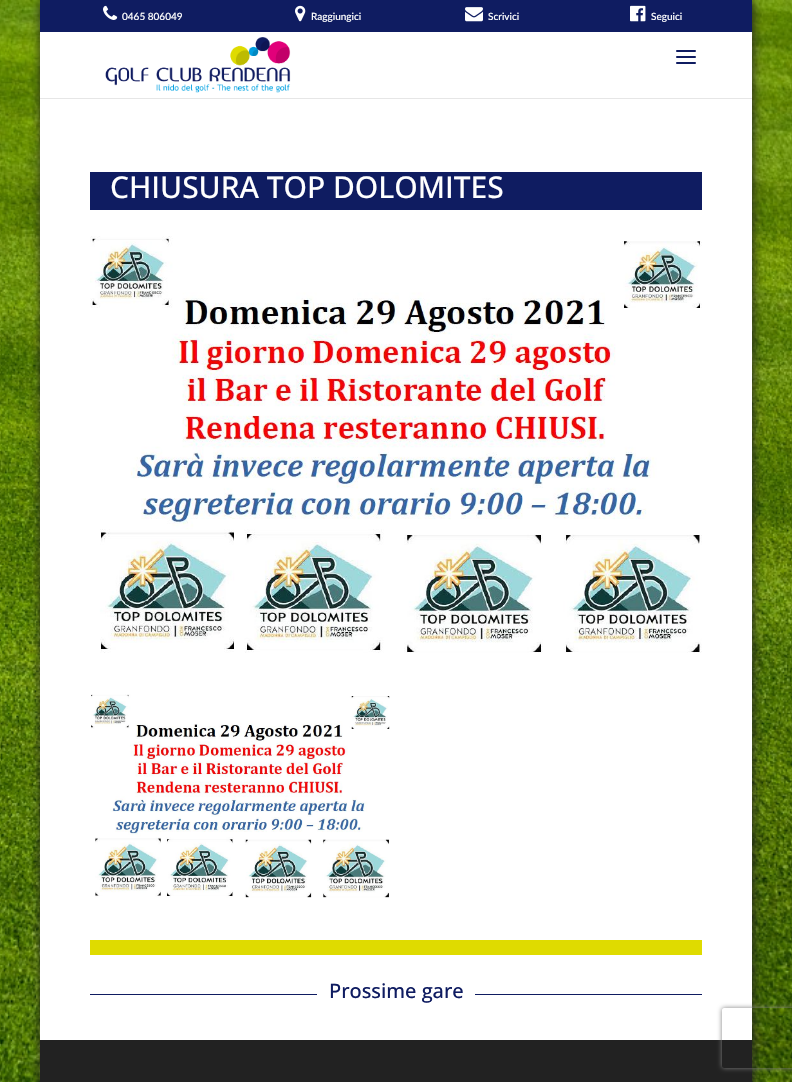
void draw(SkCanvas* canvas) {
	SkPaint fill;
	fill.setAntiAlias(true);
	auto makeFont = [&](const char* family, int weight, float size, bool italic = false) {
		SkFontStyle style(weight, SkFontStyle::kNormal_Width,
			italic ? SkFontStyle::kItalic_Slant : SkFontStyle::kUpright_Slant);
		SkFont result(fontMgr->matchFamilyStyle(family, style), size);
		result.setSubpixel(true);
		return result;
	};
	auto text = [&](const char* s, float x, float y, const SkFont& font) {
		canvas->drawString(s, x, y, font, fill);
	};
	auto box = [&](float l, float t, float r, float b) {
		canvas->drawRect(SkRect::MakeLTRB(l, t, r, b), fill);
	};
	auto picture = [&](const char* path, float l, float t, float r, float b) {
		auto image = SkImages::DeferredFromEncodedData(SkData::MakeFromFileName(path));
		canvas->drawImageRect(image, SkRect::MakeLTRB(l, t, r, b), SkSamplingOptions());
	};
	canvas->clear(0xFFFFFFFF);
	picture("image0.png", 0, 0, 792, 1082);
	fill.setColor(0xFF222222);
	fill.setMaskFilter(SkMaskFilter::MakeBlur(kNormal_SkBlurStyle, 5));
	canvas->drawRect(SkRect::MakeLTRB(41, 0, 753, 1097), fill);
	fill.setMaskFilter(nullptr);
	fill.setColor(0xFF0F1C61);
	box(40, 0, 752, 32);
	picture("image1.png", 103, 5, 118, 20);
	picture("image2.png", 295, 5, 306, 22);
	picture("image3.png", 465, 7, 483, 22);
	picture("image4.png", 630, 5, 646, 22);
	fill.setColor(0xFFE6E6E6);
	box(40, 98, 752, 99);
	fill.setColor(0xFFFFFFFF);
	box(40, 32, 752, 98);
	picture("image5.png", 105, 37, 291, 93);
	picture("image6.png", 676, 50, 696, 64);
	box(40, 99, 752, 1040);
	fill.setColor(0xFF0F1C61);
	box(90, 172, 702, 210);
	picture("image7.png", 90, 236, 702, 653);
	picture("image8.png", 91, 694, 390, 898);
	fill.setColor(0xFFDFDB00);
	box(90, 940, 702, 955);
	fill.setColor(0xFF0F1C61);
	box(90, 994, 702, 995);
	fill.setColor(0xFFFFFFFF);
	box(317, 994, 475, 995);
	fill.setColor(0xFF222222);
	box(40, 1040, 752, 1082);
	canvas->save();
	canvas->clipPath(SkPathBuilder(SkPathFillType::kEvenOdd).moveTo(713, 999).lineTo(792, 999).lineTo(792, 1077).lineTo(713, 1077).close().moveTo(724, 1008).lineTo(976, 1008).cubicTo(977, 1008, 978, 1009, 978, 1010).lineTo(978, 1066).cubicTo(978, 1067, 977, 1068, 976, 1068).lineTo(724, 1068).cubicTo(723, 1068, 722, 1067, 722, 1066).lineTo(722, 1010).cubicTo(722, 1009, 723, 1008, 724, 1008).close().detach(), true);
	fill.setColor(0xFF808080);
	fill.setMaskFilter(SkMaskFilter::MakeBlur(kNormal_SkBlurStyle, 2.5f));
	canvas->drawRoundRect(SkRect::MakeLTRB(722, 1008, 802, 1068), 2, 2, fill);
	fill.setMaskFilter(nullptr);
	canvas->restore();
	auto font1 = makeFont("Lato", 500, 10);
	fill.setColor(0xFFFFFFFF);
	text("0465 806049", 122, 20, font1);
	text("Raggiungici", 311, 20, font1);
	text("Scrivici", 488, 20, font1);
	text("Seguici", 651, 20, font1);
	auto font2 = makeFont("Open Sans", 500, 30);
	text("CHIUSURA TOP DOLOMITES", 110, 198, font2);
	auto font3 = makeFont("Open Sans", 500, 20);
	fill.setColor(0xFF0F1C61);
	text("Prossime gare", 329, 998, font3);
}
